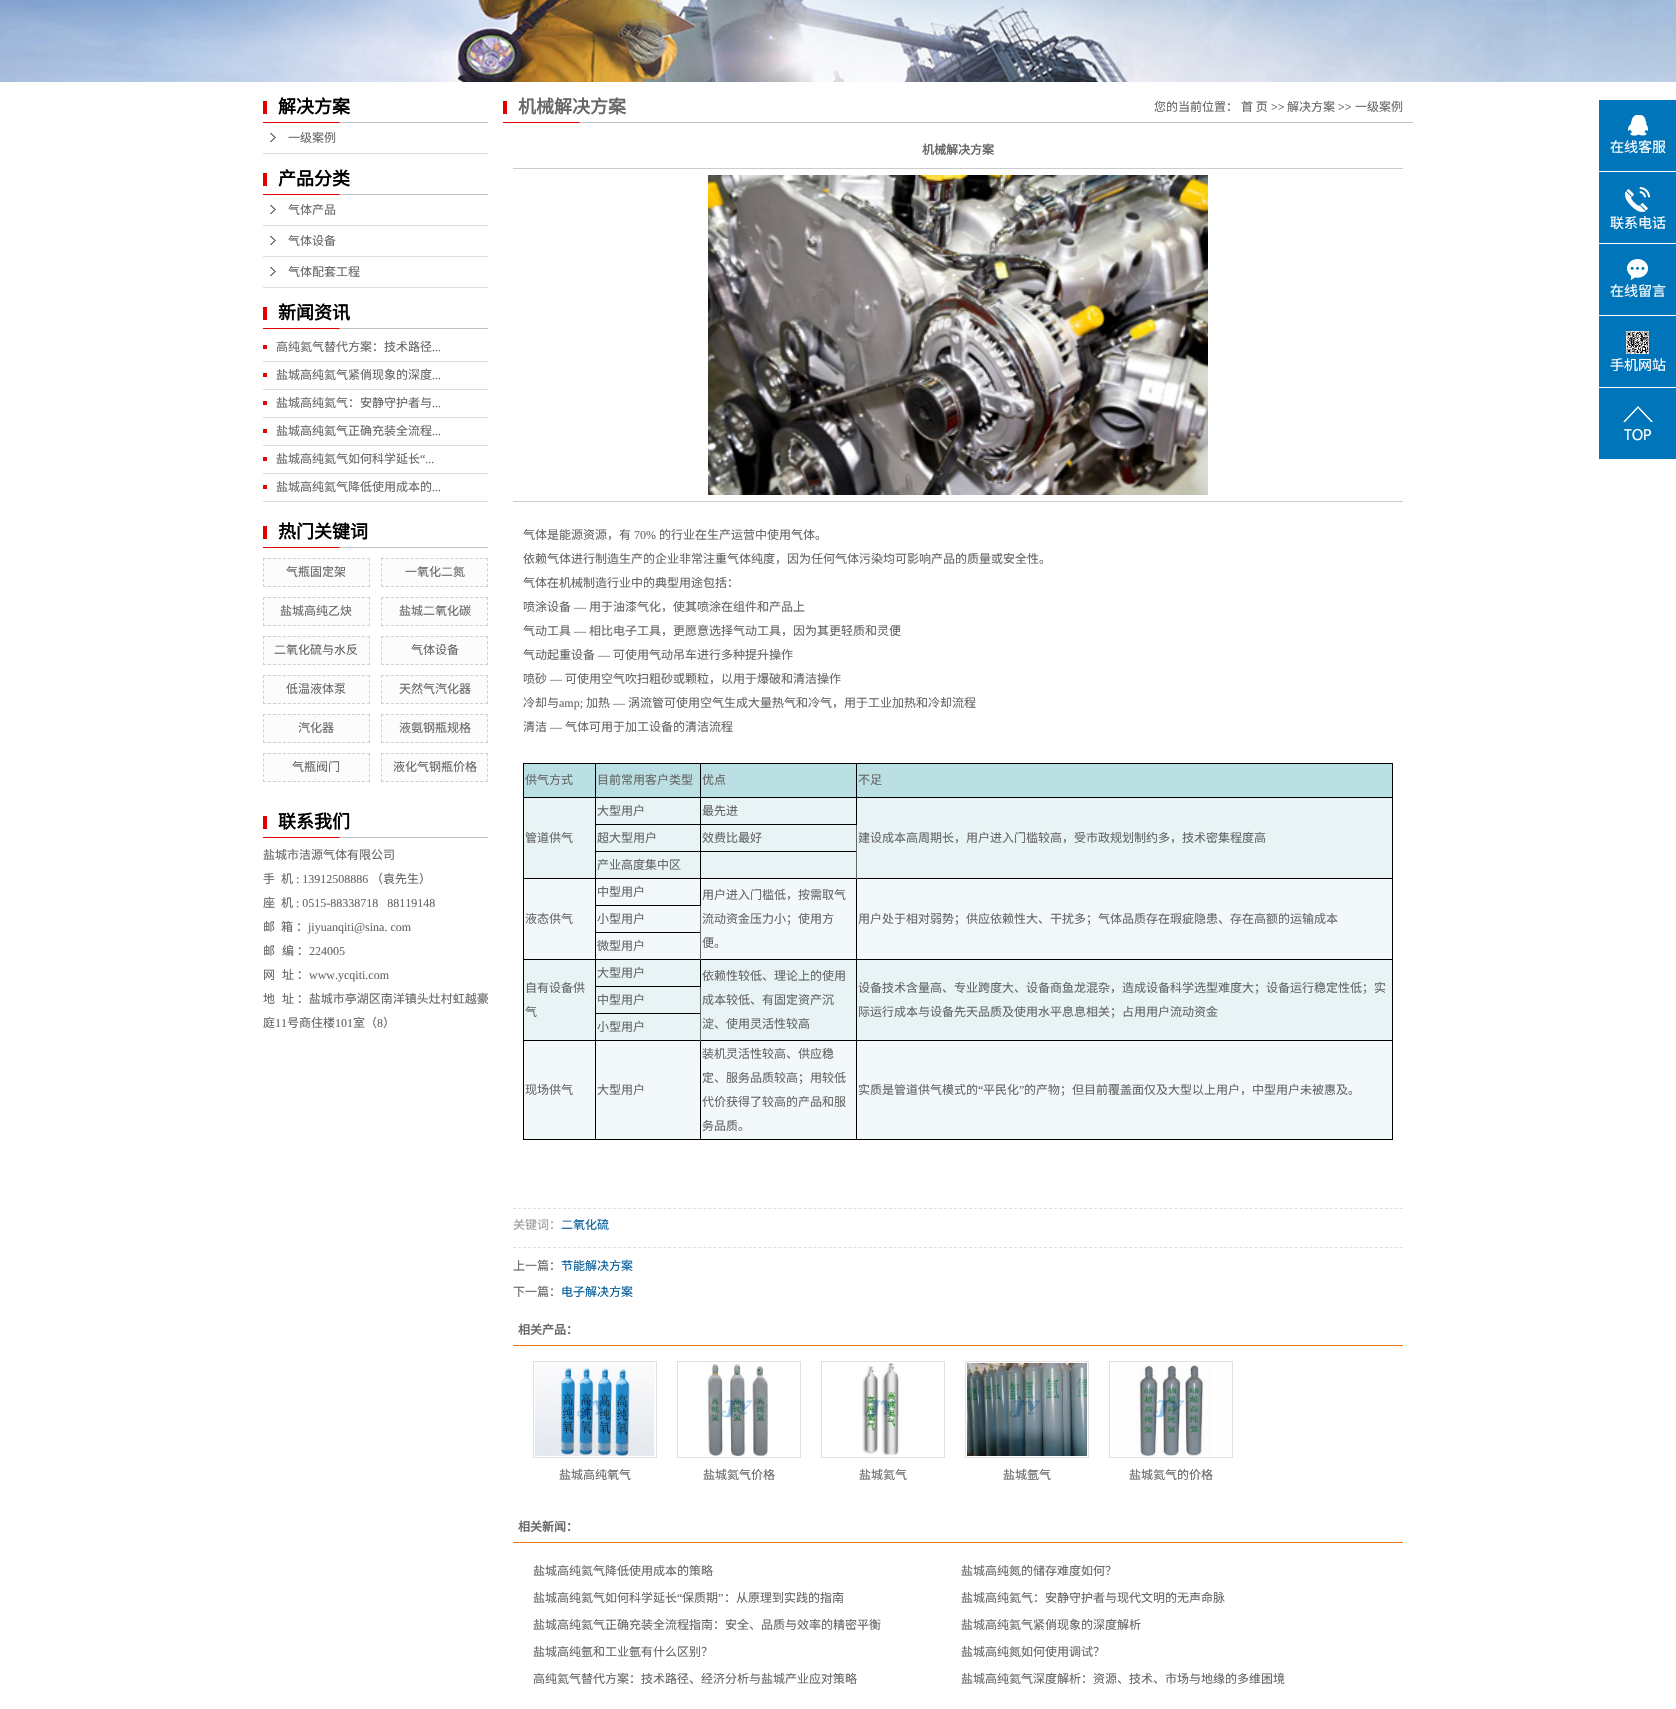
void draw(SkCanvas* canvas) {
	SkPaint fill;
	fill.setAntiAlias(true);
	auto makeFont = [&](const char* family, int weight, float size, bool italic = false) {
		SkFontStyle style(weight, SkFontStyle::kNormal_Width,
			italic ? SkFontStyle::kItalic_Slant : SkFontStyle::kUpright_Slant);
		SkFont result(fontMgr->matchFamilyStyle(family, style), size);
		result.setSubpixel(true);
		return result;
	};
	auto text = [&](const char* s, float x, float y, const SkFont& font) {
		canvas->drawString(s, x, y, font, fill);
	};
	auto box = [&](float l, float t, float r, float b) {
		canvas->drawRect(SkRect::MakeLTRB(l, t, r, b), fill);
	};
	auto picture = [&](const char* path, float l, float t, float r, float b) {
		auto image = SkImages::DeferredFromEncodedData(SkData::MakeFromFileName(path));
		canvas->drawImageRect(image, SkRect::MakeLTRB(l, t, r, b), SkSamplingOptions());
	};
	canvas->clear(0xFFFFFFFF);
	picture("image0.png", 0, 0, 1676, 82);
	picture("image1.png", 263, 101, 488, 123);
	picture("image2.png", 270, 133, 276, 142);
	fill.setColor(0xFFDDDDDD);
	box(263, 153, 488, 154);
	picture("image1.png", 263, 173, 488, 195);
	picture("image2.png", 270, 205, 276, 214);
	box(263, 225, 488, 226);
	picture("image2.png", 270, 236, 276, 245);
	box(263, 256, 488, 257);
	picture("image2.png", 270, 267, 276, 276);
	box(263, 287, 488, 288);
	picture("image1.png", 263, 307, 488, 329);
	picture("image3.png", 263, 345, 267, 349);
	box(263, 361, 488, 362);
	picture("image3.png", 263, 373, 267, 377);
	box(263, 389, 488, 390);
	picture("image3.png", 263, 401, 267, 405);
	box(263, 417, 488, 418);
	picture("image3.png", 263, 429, 267, 433);
	box(263, 445, 488, 446);
	picture("image3.png", 263, 457, 267, 461);
	box(263, 473, 488, 474);
	picture("image3.png", 263, 485, 267, 489);
	box(263, 501, 488, 502);
	picture("image1.png", 263, 526, 488, 548);
	fill.setColor(0xFFFCFCFC);
	box(263, 558, 370, 587);
	fill.setStyle(SkPaint::kStroke_Style);
	fill.setStrokeWidth(1);
	fill.setColor(0xFFD0D0D0);
	fill.setPathEffect(SkDashPathEffect::Make({{3, 1.95f}}, 0));
	canvas->drawPath(SkPathBuilder().moveTo(263, 558.5f).lineTo(370, 558.5f).detach(), fill);
	fill.setPathEffect(nullptr);
	fill.setPathEffect(SkDashPathEffect::Make({{3, 2.2f}}, 0));
	canvas->drawPath(SkPathBuilder().moveTo(369.5f, 558).lineTo(369.5f, 587).detach(), fill);
	fill.setPathEffect(nullptr);
	fill.setPathEffect(SkDashPathEffect::Make({{3, 1.95f}}, 0));
	canvas->drawPath(SkPathBuilder().moveTo(263, 586.5f).lineTo(370, 586.5f).detach(), fill);
	fill.setPathEffect(nullptr);
	fill.setPathEffect(SkDashPathEffect::Make({{3, 2.2f}}, 0));
	canvas->drawPath(SkPathBuilder().moveTo(263.5f, 558).lineTo(263.5f, 587).detach(), fill);
	fill.setPathEffect(nullptr);
	fill.setStyle(SkPaint::kFill_Style);
	fill.setColor(0xFFFCFCFC);
	box(381, 558, 488, 587);
	fill.setStyle(SkPaint::kStroke_Style);
	fill.setColor(0xFFD0D0D0);
	fill.setPathEffect(SkDashPathEffect::Make({{3, 1.95f}}, 0));
	canvas->drawPath(SkPathBuilder().moveTo(381, 558.5f).lineTo(488, 558.5f).detach(), fill);
	fill.setPathEffect(nullptr);
	fill.setPathEffect(SkDashPathEffect::Make({{3, 2.2f}}, 0));
	canvas->drawPath(SkPathBuilder().moveTo(487.5f, 558).lineTo(487.5f, 587).detach(), fill);
	fill.setPathEffect(nullptr);
	fill.setPathEffect(SkDashPathEffect::Make({{3, 1.95f}}, 0));
	canvas->drawPath(SkPathBuilder().moveTo(381, 586.5f).lineTo(488, 586.5f).detach(), fill);
	fill.setPathEffect(nullptr);
	fill.setPathEffect(SkDashPathEffect::Make({{3, 2.2f}}, 0));
	canvas->drawPath(SkPathBuilder().moveTo(381.5f, 558).lineTo(381.5f, 587).detach(), fill);
	fill.setPathEffect(nullptr);
	fill.setStyle(SkPaint::kFill_Style);
	fill.setColor(0xFFFCFCFC);
	box(263, 597, 370, 626);
	fill.setStyle(SkPaint::kStroke_Style);
	fill.setColor(0xFFD0D0D0);
	fill.setPathEffect(SkDashPathEffect::Make({{3, 1.95f}}, 0));
	canvas->drawPath(SkPathBuilder().moveTo(263, 597.5f).lineTo(370, 597.5f).detach(), fill);
	fill.setPathEffect(nullptr);
	fill.setPathEffect(SkDashPathEffect::Make({{3, 2.2f}}, 0));
	canvas->drawPath(SkPathBuilder().moveTo(369.5f, 597).lineTo(369.5f, 626).detach(), fill);
	fill.setPathEffect(nullptr);
	fill.setPathEffect(SkDashPathEffect::Make({{3, 1.95f}}, 0));
	canvas->drawPath(SkPathBuilder().moveTo(263, 625.5f).lineTo(370, 625.5f).detach(), fill);
	fill.setPathEffect(nullptr);
	fill.setPathEffect(SkDashPathEffect::Make({{3, 2.2f}}, 0));
	canvas->drawPath(SkPathBuilder().moveTo(263.5f, 597).lineTo(263.5f, 626).detach(), fill);
	fill.setPathEffect(nullptr);
	fill.setStyle(SkPaint::kFill_Style);
	fill.setColor(0xFFFCFCFC);
	box(381, 597, 488, 626);
	fill.setStyle(SkPaint::kStroke_Style);
	fill.setColor(0xFFD0D0D0);
	fill.setPathEffect(SkDashPathEffect::Make({{3, 1.95f}}, 0));
	canvas->drawPath(SkPathBuilder().moveTo(381, 597.5f).lineTo(488, 597.5f).detach(), fill);
	fill.setPathEffect(nullptr);
	fill.setPathEffect(SkDashPathEffect::Make({{3, 2.2f}}, 0));
	canvas->drawPath(SkPathBuilder().moveTo(487.5f, 597).lineTo(487.5f, 626).detach(), fill);
	fill.setPathEffect(nullptr);
	fill.setPathEffect(SkDashPathEffect::Make({{3, 1.95f}}, 0));
	canvas->drawPath(SkPathBuilder().moveTo(381, 625.5f).lineTo(488, 625.5f).detach(), fill);
	fill.setPathEffect(nullptr);
	fill.setPathEffect(SkDashPathEffect::Make({{3, 2.2f}}, 0));
	canvas->drawPath(SkPathBuilder().moveTo(381.5f, 597).lineTo(381.5f, 626).detach(), fill);
	fill.setPathEffect(nullptr);
	fill.setStyle(SkPaint::kFill_Style);
	fill.setColor(0xFFFCFCFC);
	box(263, 636, 370, 665);
	fill.setStyle(SkPaint::kStroke_Style);
	fill.setColor(0xFFD0D0D0);
	fill.setPathEffect(SkDashPathEffect::Make({{3, 1.95f}}, 0));
	canvas->drawPath(SkPathBuilder().moveTo(263, 636.5f).lineTo(370, 636.5f).detach(), fill);
	fill.setPathEffect(nullptr);
	fill.setPathEffect(SkDashPathEffect::Make({{3, 2.2f}}, 0));
	canvas->drawPath(SkPathBuilder().moveTo(369.5f, 636).lineTo(369.5f, 665).detach(), fill);
	fill.setPathEffect(nullptr);
	fill.setPathEffect(SkDashPathEffect::Make({{3, 1.95f}}, 0));
	canvas->drawPath(SkPathBuilder().moveTo(263, 664.5f).lineTo(370, 664.5f).detach(), fill);
	fill.setPathEffect(nullptr);
	fill.setPathEffect(SkDashPathEffect::Make({{3, 2.2f}}, 0));
	canvas->drawPath(SkPathBuilder().moveTo(263.5f, 636).lineTo(263.5f, 665).detach(), fill);
	fill.setPathEffect(nullptr);
	fill.setStyle(SkPaint::kFill_Style);
	fill.setColor(0xFFFCFCFC);
	box(381, 636, 488, 665);
	fill.setStyle(SkPaint::kStroke_Style);
	fill.setColor(0xFFD0D0D0);
	fill.setPathEffect(SkDashPathEffect::Make({{3, 1.95f}}, 0));
	canvas->drawPath(SkPathBuilder().moveTo(381, 636.5f).lineTo(488, 636.5f).detach(), fill);
	fill.setPathEffect(nullptr);
	fill.setPathEffect(SkDashPathEffect::Make({{3, 2.2f}}, 0));
	canvas->drawPath(SkPathBuilder().moveTo(487.5f, 636).lineTo(487.5f, 665).detach(), fill);
	fill.setPathEffect(nullptr);
	fill.setPathEffect(SkDashPathEffect::Make({{3, 1.95f}}, 0));
	canvas->drawPath(SkPathBuilder().moveTo(381, 664.5f).lineTo(488, 664.5f).detach(), fill);
	fill.setPathEffect(nullptr);
	fill.setPathEffect(SkDashPathEffect::Make({{3, 2.2f}}, 0));
	canvas->drawPath(SkPathBuilder().moveTo(381.5f, 636).lineTo(381.5f, 665).detach(), fill);
	fill.setPathEffect(nullptr);
	fill.setStyle(SkPaint::kFill_Style);
	fill.setColor(0xFFFCFCFC);
	box(263, 675, 370, 704);
	fill.setStyle(SkPaint::kStroke_Style);
	fill.setColor(0xFFD0D0D0);
	fill.setPathEffect(SkDashPathEffect::Make({{3, 1.95f}}, 0));
	canvas->drawPath(SkPathBuilder().moveTo(263, 675.5f).lineTo(370, 675.5f).detach(), fill);
	fill.setPathEffect(nullptr);
	fill.setPathEffect(SkDashPathEffect::Make({{3, 2.2f}}, 0));
	canvas->drawPath(SkPathBuilder().moveTo(369.5f, 675).lineTo(369.5f, 704).detach(), fill);
	fill.setPathEffect(nullptr);
	fill.setPathEffect(SkDashPathEffect::Make({{3, 1.95f}}, 0));
	canvas->drawPath(SkPathBuilder().moveTo(263, 703.5f).lineTo(370, 703.5f).detach(), fill);
	fill.setPathEffect(nullptr);
	fill.setPathEffect(SkDashPathEffect::Make({{3, 2.2f}}, 0));
	canvas->drawPath(SkPathBuilder().moveTo(263.5f, 675).lineTo(263.5f, 704).detach(), fill);
	fill.setPathEffect(nullptr);
	fill.setStyle(SkPaint::kFill_Style);
	fill.setColor(0xFFFCFCFC);
	box(381, 675, 488, 704);
	fill.setStyle(SkPaint::kStroke_Style);
	fill.setColor(0xFFD0D0D0);
	fill.setPathEffect(SkDashPathEffect::Make({{3, 1.95f}}, 0));
	canvas->drawPath(SkPathBuilder().moveTo(381, 675.5f).lineTo(488, 675.5f).detach(), fill);
	fill.setPathEffect(nullptr);
	fill.setPathEffect(SkDashPathEffect::Make({{3, 2.2f}}, 0));
	canvas->drawPath(SkPathBuilder().moveTo(487.5f, 675).lineTo(487.5f, 704).detach(), fill);
	fill.setPathEffect(nullptr);
	fill.setPathEffect(SkDashPathEffect::Make({{3, 1.95f}}, 0));
	canvas->drawPath(SkPathBuilder().moveTo(381, 703.5f).lineTo(488, 703.5f).detach(), fill);
	fill.setPathEffect(nullptr);
	fill.setPathEffect(SkDashPathEffect::Make({{3, 2.2f}}, 0));
	canvas->drawPath(SkPathBuilder().moveTo(381.5f, 675).lineTo(381.5f, 704).detach(), fill);
	fill.setPathEffect(nullptr);
	fill.setStyle(SkPaint::kFill_Style);
	fill.setColor(0xFFFCFCFC);
	box(263, 714, 370, 743);
	fill.setStyle(SkPaint::kStroke_Style);
	fill.setColor(0xFFD0D0D0);
	fill.setPathEffect(SkDashPathEffect::Make({{3, 1.95f}}, 0));
	canvas->drawPath(SkPathBuilder().moveTo(263, 714.5f).lineTo(370, 714.5f).detach(), fill);
	fill.setPathEffect(nullptr);
	fill.setPathEffect(SkDashPathEffect::Make({{3, 2.2f}}, 0));
	canvas->drawPath(SkPathBuilder().moveTo(369.5f, 714).lineTo(369.5f, 743).detach(), fill);
	fill.setPathEffect(nullptr);
	fill.setPathEffect(SkDashPathEffect::Make({{3, 1.95f}}, 0));
	canvas->drawPath(SkPathBuilder().moveTo(263, 742.5f).lineTo(370, 742.5f).detach(), fill);
	fill.setPathEffect(nullptr);
	fill.setPathEffect(SkDashPathEffect::Make({{3, 2.2f}}, 0));
	canvas->drawPath(SkPathBuilder().moveTo(263.5f, 714).lineTo(263.5f, 743).detach(), fill);
	fill.setPathEffect(nullptr);
	fill.setStyle(SkPaint::kFill_Style);
	fill.setColor(0xFFFCFCFC);
	box(381, 714, 488, 743);
	fill.setStyle(SkPaint::kStroke_Style);
	fill.setColor(0xFFD0D0D0);
	fill.setPathEffect(SkDashPathEffect::Make({{3, 1.95f}}, 0));
	canvas->drawPath(SkPathBuilder().moveTo(381, 714.5f).lineTo(488, 714.5f).detach(), fill);
	fill.setPathEffect(nullptr);
	fill.setPathEffect(SkDashPathEffect::Make({{3, 2.2f}}, 0));
	canvas->drawPath(SkPathBuilder().moveTo(487.5f, 714).lineTo(487.5f, 743).detach(), fill);
	fill.setPathEffect(nullptr);
	fill.setPathEffect(SkDashPathEffect::Make({{3, 1.95f}}, 0));
	canvas->drawPath(SkPathBuilder().moveTo(381, 742.5f).lineTo(488, 742.5f).detach(), fill);
	fill.setPathEffect(nullptr);
	fill.setPathEffect(SkDashPathEffect::Make({{3, 2.2f}}, 0));
	canvas->drawPath(SkPathBuilder().moveTo(381.5f, 714).lineTo(381.5f, 743).detach(), fill);
	fill.setPathEffect(nullptr);
	fill.setStyle(SkPaint::kFill_Style);
	fill.setColor(0xFFFCFCFC);
	box(263, 753, 370, 782);
	fill.setStyle(SkPaint::kStroke_Style);
	fill.setColor(0xFFD0D0D0);
	fill.setPathEffect(SkDashPathEffect::Make({{3, 1.95f}}, 0));
	canvas->drawPath(SkPathBuilder().moveTo(263, 753.5f).lineTo(370, 753.5f).detach(), fill);
	fill.setPathEffect(nullptr);
	fill.setPathEffect(SkDashPathEffect::Make({{3, 2.2f}}, 0));
	canvas->drawPath(SkPathBuilder().moveTo(369.5f, 753).lineTo(369.5f, 782).detach(), fill);
	fill.setPathEffect(nullptr);
	fill.setPathEffect(SkDashPathEffect::Make({{3, 1.95f}}, 0));
	canvas->drawPath(SkPathBuilder().moveTo(263, 781.5f).lineTo(370, 781.5f).detach(), fill);
	fill.setPathEffect(nullptr);
	fill.setPathEffect(SkDashPathEffect::Make({{3, 2.2f}}, 0));
	canvas->drawPath(SkPathBuilder().moveTo(263.5f, 753).lineTo(263.5f, 782).detach(), fill);
	fill.setPathEffect(nullptr);
	fill.setStyle(SkPaint::kFill_Style);
	fill.setColor(0xFFFCFCFC);
	box(381, 753, 488, 782);
	fill.setStyle(SkPaint::kStroke_Style);
	fill.setColor(0xFFD0D0D0);
	fill.setPathEffect(SkDashPathEffect::Make({{3, 1.95f}}, 0));
	canvas->drawPath(SkPathBuilder().moveTo(381, 753.5f).lineTo(488, 753.5f).detach(), fill);
	fill.setPathEffect(nullptr);
	fill.setPathEffect(SkDashPathEffect::Make({{3, 2.2f}}, 0));
	canvas->drawPath(SkPathBuilder().moveTo(487.5f, 753).lineTo(487.5f, 782).detach(), fill);
	fill.setPathEffect(nullptr);
	fill.setPathEffect(SkDashPathEffect::Make({{3, 1.95f}}, 0));
	canvas->drawPath(SkPathBuilder().moveTo(381, 781.5f).lineTo(488, 781.5f).detach(), fill);
	fill.setPathEffect(nullptr);
	fill.setPathEffect(SkDashPathEffect::Make({{3, 2.2f}}, 0));
	canvas->drawPath(SkPathBuilder().moveTo(381.5f, 753).lineTo(381.5f, 782).detach(), fill);
	fill.setPathEffect(nullptr);
	picture("image1.png", 263, 816, 488, 838);
	picture("image4.png", 503, 101, 1413, 123);
	fill.setStyle(SkPaint::kFill_Style);
	fill.setColor(0xFFCCCCCC);
	box(513, 168, 1403, 169);
	picture("image5.png", 708, 175, 1208, 495);
	box(513, 501, 1403, 502);
	fill.setColor(0xFFBBE0E3);
	box(524, 764, 595, 797);
	fill.setColor(0xFF000000);
	box(523, 763, 1393, 764);
	box(1392, 797, 1393, 1140);
	box(1392, 763, 1393, 798);
	box(856, 797, 857, 825);
	box(856, 797, 1393, 798);
	box(856, 763, 857, 798);
	box(700, 878, 701, 906);
	box(856, 1139, 1393, 1140);
	box(856, 1040, 857, 1140);
	box(856, 1040, 1393, 1041);
	box(856, 959, 857, 1041);
	box(856, 959, 1393, 960);
	box(856, 878, 857, 960);
	box(700, 878, 1393, 879);
	box(700, 851, 701, 879);
	box(700, 851, 857, 852);
	box(700, 824, 701, 852);
	box(700, 824, 857, 825);
	box(700, 797, 701, 825);
	box(700, 797, 857, 798);
	box(700, 763, 701, 798);
	box(595, 824, 701, 825);
	box(595, 851, 701, 852);
	box(595, 905, 701, 906);
	box(595, 932, 701, 933);
	box(700, 959, 701, 987);
	box(595, 986, 701, 987);
	box(595, 1013, 701, 1014);
	box(700, 1139, 857, 1140);
	box(700, 1040, 701, 1140);
	box(595, 1139, 701, 1140);
	box(595, 1040, 596, 1140);
	box(595, 1040, 701, 1041);
	box(595, 959, 596, 1041);
	box(595, 959, 701, 960);
	box(595, 878, 596, 960);
	box(595, 878, 701, 879);
	box(595, 797, 596, 879);
	box(595, 797, 701, 798);
	box(595, 763, 596, 798);
	box(523, 1139, 596, 1140);
	box(523, 1040, 524, 1140);
	box(523, 1040, 596, 1041);
	box(523, 959, 524, 1041);
	box(523, 959, 596, 960);
	box(523, 878, 524, 960);
	box(523, 878, 596, 879);
	box(523, 797, 524, 879);
	box(523, 797, 596, 798);
	box(523, 763, 524, 798);
	fill.setColor(0xFFBBE0E3);
	box(596, 764, 700, 797);
	box(701, 764, 856, 797);
	box(857, 764, 1392, 797);
	fill.setColor(0xFFE7F3F4);
	box(596, 798, 700, 824);
	box(701, 798, 856, 824);
	box(524, 798, 595, 878);
	box(857, 798, 1392, 878);
	fill.setColor(0xFF666666);
	box(856, 825, 857, 879);
	fill.setColor(0xFFE7F3F4);
	box(596, 825, 700, 851);
	box(701, 825, 856, 851);
	box(596, 852, 700, 878);
	box(701, 852, 856, 878);
	fill.setColor(0xFFF3F9FA);
	box(524, 879, 595, 959);
	box(596, 879, 700, 905);
	box(701, 879, 856, 959);
	fill.setColor(0xFF000000);
	box(700, 959, 857, 960);
	fill.setColor(0xFF666666);
	box(700, 906, 701, 960);
	fill.setColor(0xFFF3F9FA);
	box(857, 879, 1392, 959);
	box(596, 906, 700, 932);
	box(596, 933, 700, 959);
	fill.setColor(0xFFE7F3F4);
	box(524, 960, 595, 1040);
	box(596, 960, 700, 986);
	box(701, 960, 856, 1040);
	fill.setColor(0xFF000000);
	box(700, 1040, 857, 1041);
	fill.setColor(0xFF666666);
	box(700, 987, 701, 1041);
	fill.setColor(0xFFE7F3F4);
	box(857, 960, 1392, 1040);
	box(596, 987, 700, 1013);
	box(596, 1014, 700, 1040);
	fill.setColor(0xFFF3F9FA);
	box(524, 1041, 595, 1139);
	box(596, 1041, 700, 1139);
	box(701, 1041, 856, 1139);
	box(857, 1041, 1392, 1139);
	fill.setStyle(SkPaint::kStroke_Style);
	fill.setColor(0xFFE0E1DC);
	fill.setPathEffect(SkDashPathEffect::Make({{3, 2.01f}}, 0));
	canvas->drawPath(SkPathBuilder().moveTo(513, 1208.5f).lineTo(1403, 1208.5f).detach(), fill);
	fill.setPathEffect(nullptr);
	fill.setPathEffect(SkDashPathEffect::Make({{3, 2.01f}}, 0));
	canvas->drawPath(SkPathBuilder().moveTo(513, 1247.5f).lineTo(1403, 1247.5f).detach(), fill);
	fill.setPathEffect(nullptr);
	fill.setStyle(SkPaint::kFill_Style);
	fill.setColor(0xFFE87518);
	box(513, 1345, 1403, 1346);
	fill.setStyle(SkPaint::kStroke_Style);
	fill.setColor(0xFFE0E1DC);
	canvas->drawRect(SkRect::MakeLTRB(533.5f, 1361.5f, 656.5f, 1457.5f), fill);
	picture("image6.png", 535, 1363, 655, 1456);
	canvas->drawRect(SkRect::MakeLTRB(677.5f, 1361.5f, 800.5f, 1457.5f), fill);
	picture("image7.png", 707, 1363, 768, 1456);
	canvas->drawRect(SkRect::MakeLTRB(821.5f, 1361.5f, 944.5f, 1457.5f), fill);
	picture("image8.png", 862, 1363, 899, 1456);
	canvas->drawRect(SkRect::MakeLTRB(965.5f, 1361.5f, 1088.5f, 1457.5f), fill);
	picture("image9.png", 967, 1363, 1087, 1456);
	canvas->drawRect(SkRect::MakeLTRB(1109.5f, 1361.5f, 1232.5f, 1457.5f), fill);
	picture("image10.png", 1113, 1363, 1231, 1456);
	fill.setStyle(SkPaint::kFill_Style);
	fill.setColor(0xFFE87518);
	box(513, 1542, 1403, 1543);
	fill.setColor(0xFF0075B9);
	box(1599, 100, 1676, 171);
	picture("image11.png", 1628, 115, 1648, 136);
	box(1599, 172, 1676, 243);
	picture("image12.png", 1625, 187, 1650, 212);
	box(1599, 244, 1676, 315);
	picture("image13.png", 1627, 259, 1648, 280);
	box(1599, 316, 1676, 387);
	picture("image14.png", 1626, 331, 1649, 354);
	box(1599, 388, 1676, 459);
	picture("image15.png", 1623, 406, 1653, 441);
	auto font1 = makeFont("Noto Sans CJK SC", 700, 18);
	fill.setColor(0xFF000000);
	text("解决方案", 278, 113, font1);
	auto font2 = makeFont("Noto Sans CJK SC", 400, 12);
	fill.setColor(0xFF666666);
	text("一级案例", 288, 142, font2);
	fill.setColor(0xFF000000);
	text("产品分类", 278, 185, font1);
	fill.setColor(0xFF666666);
	text("气体产品", 288, 214, font2);
	text("气体设备", 288, 245, font2);
	text("气体配套工程", 288, 276, font2);
	fill.setColor(0xFF000000);
	text("新闻资讯", 278, 319, font1);
	fill.setColor(0xFF666666);
	text("高纯氦气替代方案：技术路径", 276, 351, font2);
	auto font3 = makeFont("Liberation Serif", 400, 12);
	text("...", 432, 351, font3);
	text("盐城高纯氦气紧俏现象的深度", 276, 379, font2);
	text("...", 432, 379, font3);
	text("盐城高纯氦气：安静守护者与", 276, 407, font2);
	text("...", 432, 407, font3);
	text("盐城高纯氦气正确充装全流程", 276, 435, font2);
	text("...", 432, 435, font3);
	text("盐城高纯氦气如何科学延长", 276, 463, font2);
	text("“...", 420, 463, font3);
	text("盐城高纯氦气降低使用成本的", 276, 491, font2);
	text("...", 432, 491, font3);
	fill.setColor(0xFF000000);
	text("热门关键词", 278, 538, font1);
	fill.setColor(0xFF666666);
	text("气瓶固定架", 286, 576, font2);
	text("一氧化二氮", 405, 576, font2);
	text("盐城高纯乙炔", 280, 615, font2);
	text("盐城二氧化碳", 399, 615, font2);
	text("二氧化硫与水反", 274, 654, font2);
	text("气体设备", 411, 654, font2);
	text("低温液体泵", 286, 693, font2);
	text("天然气汽化器", 399, 693, font2);
	text("汽化器", 298, 732, font2);
	text("液氨钢瓶规格", 399, 732, font2);
	text("气瓶阀门", 292, 771, font2);
	text("液化气钢瓶价格", 393, 771, font2);
	fill.setColor(0xFF000000);
	text("联系我们", 278, 828, font1);
	fill.setColor(0xFF666666);
	text("盐城市洁源气体有限公司", 263, 859, font2);
	text("手", 263, 883, font2);
	text("机", 281, 883, font2);
	text(": 13912508886", 296, 883, font3);
	text("（袁先生）", 371, 883, font2);
	text("座", 263, 907, font2);
	text("机", 281, 907, font2);
	text(": 0515-88338718   88119148", 296, 907, font3);
	text("邮", 263, 931, font2);
	text("箱", 281, 931, font2);
	text("：", 296, 931, font2);
	text("jiyuanqiti@sina. com", 308, 931, font3);
	text("邮", 263, 955, font2);
	text("编 ：", 282, 955, font2);
	text("224005", 309, 955, font3);
	text("网", 263, 979, font2);
	text("址 ：", 282, 979, font2);
	text("www.ycqiti.com", 309, 979, font3);
	text("地", 263, 1003, font2);
	text("址 ：盐城市亭湖区南洋镇头灶村虹越豪", 282, 1003, font2);
	text("庭", 263, 1027, font2);
	text("11", 275, 1027, font3);
	text("号商住楼", 287, 1027, font2);
	text("101", 335, 1027, font3);
	text("室（", 353, 1027, font2);
	text("8", 377, 1027, font3);
	text("）", 383, 1027, font2);
	text("机械解决方案", 518, 113, font1);
	text("您的当前位置：", 1154, 111, font2);
	text("首 页", 1241, 111, font2);
	text(">>", 1271, 111, font3);
	text("解决方案", 1287, 111, font2);
	text(">>", 1338, 111, font3);
	text("一级案例", 1355, 111, font2);
	auto font4 = makeFont("Noto Sans CJK SC", 700, 12);
	text("机械解决方案", 922, 154, font4);
	text("气体是能源资源，有", 523, 539, font2);
	text("70%", 634, 539, font3);
	text("的行业在生产运营中使用气体。", 659, 539, font2);
	text("依赖气体进行制造生产的企业非常注重气体纯度，因为任何气体污染均可影响产品的质量或安全性。", 523, 563, font2);
	text("气体在机械制造行业中的典型用途包括：", 523, 587, font2);
	text("喷涂设备", 523, 611, font2);
	text("—", 574, 611, font3);
	text("用于油漆气化，使其喷涂在组件和产品上", 589, 611, font2);
	text("气动工具", 523, 635, font2);
	text("—", 574, 635, font3);
	text("相比电子工具，更愿意选择气动工具，因为其更轻质和灵便", 589, 635, font2);
	text("气动起重设备", 523, 659, font2);
	text("—", 598, 659, font3);
	text("可使用气动吊车进行多种提升操作", 613, 659, font2);
	text("喷砂", 523, 683, font2);
	text("—", 550, 683, font3);
	text("可使用空气吹扫粗砂或颗粒，以用于爆破和清洁操作", 565, 683, font2);
	text("冷却与", 523, 707, font2);
	text("amp;", 559, 707, font3);
	text("加热", 586, 707, font2);
	text("—", 613, 707, font3);
	text("涡流管可使用空气生成大量热气和冷气，用于工业加热和冷却流程", 628, 707, font2);
	text("清洁", 523, 731, font2);
	text("—", 550, 731, font3);
	text("气体可用于加工设备的清洁流程", 565, 731, font2);
	text("供气方式", 525, 784, font2);
	text("目前常用客户类型", 597, 784, font2);
	text("优点", 702, 784, font2);
	text("不足", 858, 784, font2);
	text("大型用户", 597, 815, font2);
	text("最先进", 702, 815, font2);
	text("管道供气", 525, 842, font2);
	text("建设成本高周期长，用户进入门槛较高，受市政规划制约多，技术密集程度高", 858, 842, font2);
	text("超大型用户", 597, 842, font2);
	text("效费比最好", 702, 842, font2);
	text("产业高度集中区", 597, 869, font2);
	text("液态供气", 525, 923, font2);
	text("中型用户", 597, 896, font2);
	text("用户进入门槛低，按需取气", 702, 899, font2);
	text("流动资金压力小；使用方", 702, 923, font2);
	text("便。", 702, 947, font2);
	text("用户处于相对弱势；供应依赖性大、干扰多；气体品质存在瑕疵隐患、存在高额的运输成本", 858, 923, font2);
	text("小型用户", 597, 923, font2);
	text("微型用户", 597, 950, font2);
	text("自有设备供", 525, 992, font2);
	text("气", 525, 1016, font2);
	text("大型用户", 597, 977, font2);
	text("依赖性较低、理论上的使用", 702, 980, font2);
	text("成本较低、有固定资产沉", 702, 1004, font2);
	text("淀、使用灵活性较高", 702, 1028, font2);
	text("设备技术含量高、专业跨度大、设备商鱼龙混杂，造成设备科学选型难度大；设备运行稳定性低；实", 858, 992, font2);
	text("际运行成本与设备先天品质及使用水平息息相关；占用用户流动资金", 858, 1016, font2);
	text("中型用户", 597, 1004, font2);
	text("小型用户", 597, 1031, font2);
	text("现场供气", 525, 1094, font2);
	text("大型用户", 597, 1094, font2);
	text("装机灵活性较高、供应稳", 702, 1058, font2);
	text("定、服务品质较高；用较低", 702, 1082, font2);
	text("代价获得了较高的产品和服", 702, 1106, font2);
	text("务品质。", 702, 1130, font2);
	text("实质是管道供气模式的", 858, 1094, font2);
	text("“", 978, 1094, font3);
	text("平民化", 983, 1094, font2);
	text("”", 1019, 1094, font3);
	text("的产物；但目前覆盖面仅及大型以上用户，中型用户未被惠及。", 1024, 1094, font2);
	fill.setColor(0xFF999999);
	text("关键词：", 513, 1229, font2);
	fill.setColor(0xFF005A98);
	text("二氧化硫", 561, 1229, font2);
	fill.setColor(0xFF666666);
	text("上一篇：", 513, 1270, font2);
	fill.setColor(0xFF005A98);
	text("节能解决方案", 561, 1270, font2);
	fill.setColor(0xFF666666);
	text("下一篇：", 513, 1296, font2);
	fill.setColor(0xFF005A98);
	text("电子解决方案", 561, 1296, font2);
	fill.setColor(0xFF666666);
	text("相关产品：", 518, 1334, font4);
	text("盐城高纯氧气", 559, 1479, font2);
	text("盐城氦气价格", 703, 1479, font2);
	text("盐城氦气", 859, 1479, font2);
	text("盐城氩气", 1003, 1479, font2);
	text("盐城氦气的价格", 1129, 1479, font2);
	text("相关新闻：", 518, 1531, font4);
	text("盐城高纯氦气降低使用成本的策略", 533, 1575, font2);
	text("盐城高纯氮的储存难度如何？", 961, 1575, font2);
	text("盐城高纯氦气如何科学延长", 533, 1602, font2);
	text("“", 677, 1602, font3);
	text("保质期", 682, 1602, font2);
	text("”", 718, 1602, font3);
	text("：从原理到实践的指南", 724, 1602, font2);
	text("盐城高纯氦气：安静守护者与现代文明的无声命脉", 961, 1602, font2);
	text("盐城高纯氦气正确充装全流程指南：安全、品质与效率的精密平衡", 533, 1629, font2);
	text("盐城高纯氦气紧俏现象的深度解析", 961, 1629, font2);
	text("盐城高纯氩和工业氩有什么区别？", 533, 1656, font2);
	text("盐城高纯氮如何使用调试？", 961, 1656, font2);
	text("高纯氦气替代方案：技术路径、经济分析与盐城产业应对策略", 533, 1683, font2);
	text("盐城高纯氦气深度解析：资源、技术、市场与地缘的多维困境", 961, 1683, font2);
	auto font5 = makeFont("Noto Sans CJK SC", 400, 14);
	fill.setColor(0xFFFFFFFF);
	text("在线客服", 1610, 152, font5);
	text("联系电话", 1610, 228, font5);
	text("在线留言", 1610, 296, font5);
	text("手机网站", 1610, 370, font5);
}
